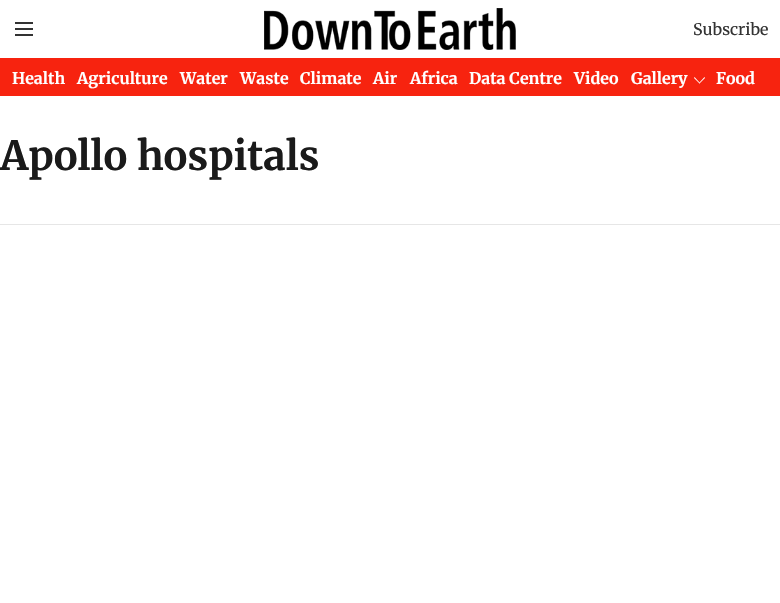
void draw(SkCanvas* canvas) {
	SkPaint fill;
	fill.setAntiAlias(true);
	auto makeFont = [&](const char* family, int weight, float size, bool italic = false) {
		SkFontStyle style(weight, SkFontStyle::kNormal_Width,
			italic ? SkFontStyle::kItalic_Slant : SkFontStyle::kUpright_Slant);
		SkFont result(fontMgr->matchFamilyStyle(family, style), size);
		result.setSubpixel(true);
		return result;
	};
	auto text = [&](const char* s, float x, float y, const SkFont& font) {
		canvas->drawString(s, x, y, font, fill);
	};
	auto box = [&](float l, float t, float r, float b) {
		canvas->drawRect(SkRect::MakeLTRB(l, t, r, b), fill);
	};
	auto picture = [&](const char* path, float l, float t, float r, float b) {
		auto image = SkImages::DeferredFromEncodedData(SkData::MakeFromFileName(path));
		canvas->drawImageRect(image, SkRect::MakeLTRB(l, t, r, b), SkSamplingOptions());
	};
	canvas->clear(0xFFFFFFFF);
	picture("image0.png", 15, 22, 33, 36);
	picture("image1.png", 264, 8, 516, 50);
	fill.setColor(0xFFF7230F);
	box(0, 58, 780, 96);
	fill.setColor(0xFFFFFFFF);
	canvas->drawPath(SkPathBuilder().moveTo(704.5f, 77).lineTo(705, 78).lineTo(699.5f, 83.5f).lineTo(699, 83).close().detach(), fill);
	canvas->drawPath(SkPathBuilder().moveTo(694.5f, 77).lineTo(700, 83).lineTo(699.5f, 83.5f).lineTo(694, 78).close().detach(), fill);
	fill.setColor(0xFFE6E6E6);
	box(0, 224, 780, 225);
	auto font1 = makeFont("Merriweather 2", 300, 16);
	fill.setColor(0xFF333333);
	text("Subscribe", 693, 35, font1);
	auto font2 = makeFont("Merriweather", 300, 16);
	fill.setColor(0xFFFFFFFF);
	text("Health", 12, 84, font2);
	text("Agriculture", 77, 84, font2);
	text("Water", 180, 84, font2);
	text("Waste", 240, 84, font2);
	text("Climate", 300, 84, font2);
	text("Air", 373, 84, font2);
	text("Africa", 410, 84, font2);
	text("Data Centre", 469, 84, font2);
	text("Video", 574, 84, font2);
	text("Gallery", 631, 84, font2);
	text("Food", 716, 84, font2);
	auto font3 = makeFont("Merriweather", 300, 40);
	fill.setColor(0xFF1A1A1A);
	text("Apollo hospitals", 0, 170, font3);
}
